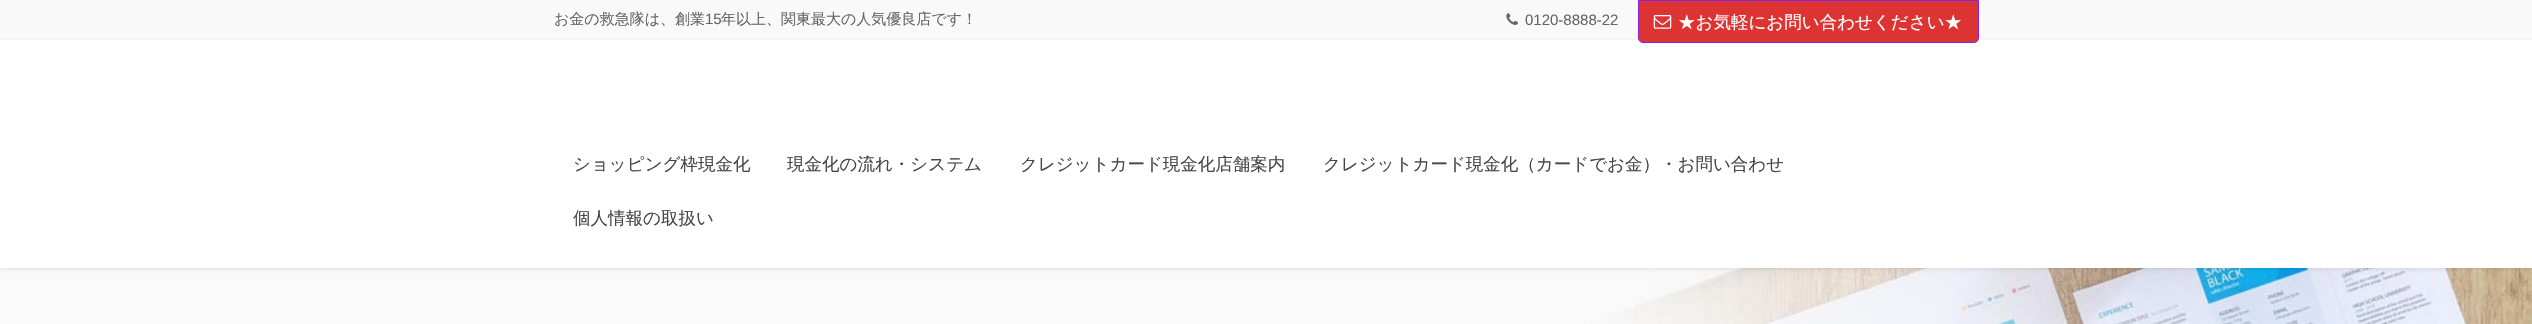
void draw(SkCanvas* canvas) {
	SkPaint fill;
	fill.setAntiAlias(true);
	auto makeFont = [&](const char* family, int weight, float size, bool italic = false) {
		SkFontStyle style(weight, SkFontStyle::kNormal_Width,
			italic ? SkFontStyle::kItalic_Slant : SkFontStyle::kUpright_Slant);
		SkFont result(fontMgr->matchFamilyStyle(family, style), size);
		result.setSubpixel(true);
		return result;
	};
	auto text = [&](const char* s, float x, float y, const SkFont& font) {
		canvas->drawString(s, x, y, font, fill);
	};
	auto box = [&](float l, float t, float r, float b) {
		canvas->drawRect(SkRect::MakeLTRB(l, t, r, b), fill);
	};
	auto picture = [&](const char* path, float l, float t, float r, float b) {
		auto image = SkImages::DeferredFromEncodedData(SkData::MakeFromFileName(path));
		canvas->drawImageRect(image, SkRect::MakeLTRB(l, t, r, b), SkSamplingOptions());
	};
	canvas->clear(0xFFFFFFFF);
	picture("image2.png", 0, 268, 2532, 324);
	fill.setColor(0x1A000000);
	fill.setMaskFilter(SkMaskFilter::MakeBlur(kNormal_SkBlurStyle, 2));
	canvas->drawRect(SkRect::MakeLTRB(0, 1, 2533, 269), fill);
	fill.setMaskFilter(nullptr);
	fill.setColor(0xFFFFFFFF);
	box(0, 40, 2532, 268);
	fill.setColor(0xFFF9F9F9);
	box(0, 0, 2532, 39);
	fill.setColor(0xFFF3F3F3);
	box(0, 39, 2532, 40);
	picture("image0.png", 1506, 13, 1518, 25);
	fill.setColor(0xFFDD3333);
	canvas->drawPath(SkPathBuilder().moveTo(1638.5f, 0.5f).lineTo(1978.5f, 0.5f).lineTo(1978.5f, 38).cubicTo(1978.5f, 40.5f, 1976.5f, 42.5f, 1974, 42.5f).lineTo(1643, 42.5f).cubicTo(1640.5f, 42.5f, 1638.5f, 40.5f, 1638.5f, 38).close().detach(), fill);
	fill.setStyle(SkPaint::kStroke_Style);
	fill.setStrokeWidth(1);
	fill.setColor(0xFF8224E3);
	canvas->drawPath(SkPathBuilder().moveTo(1638.5f, 0.5f).lineTo(1978.5f, 0.5f).lineTo(1978.5f, 38).cubicTo(1978.5f, 40.5f, 1976.5f, 42.5f, 1974, 42.5f).lineTo(1643, 42.5f).cubicTo(1640.5f, 42.5f, 1638.5f, 40.5f, 1638.5f, 38).close().detach(), fill);
	picture("image1.png", 1653, 15, 1672, 29);
	auto font1 = makeFont("WenQuanYi Zen Hei", 500, 15);
	fill.setStyle(SkPaint::kFill_Style);
	fill.setColor(0xFF666666);
	text("お金の救急隊は、創業", 554, 24, font1);
	auto font2 = makeFont("Liberation Sans", 400, 15);
	text("15", 705, 24, font2);
	text("年以上、関東最大の人気優良店です！", 721, 24, font1);
	text("0120-8888-22", 1525, 25, font2);
	auto font3 = makeFont("WenQuanYi Zen Hei", 500, 17.5f);
	fill.setColor(0xFFFFFFFF);
	text("★お気軽にお問い合わせください★", 1678, 28, font3);
	fill.setColor(0xFF464646);
	text("ショッピング枠現金化", 573, 170, font3);
	text("現金化の流れ・システム", 787, 170, font3);
	text("クレジットカード現金化店舗案内", 1020, 170, font3);
	text("クレジットカード現金化（カードでお金）・お問い合わせ", 1323, 170, font3);
	text("個人情報の取扱い", 573, 224, font3);
}
